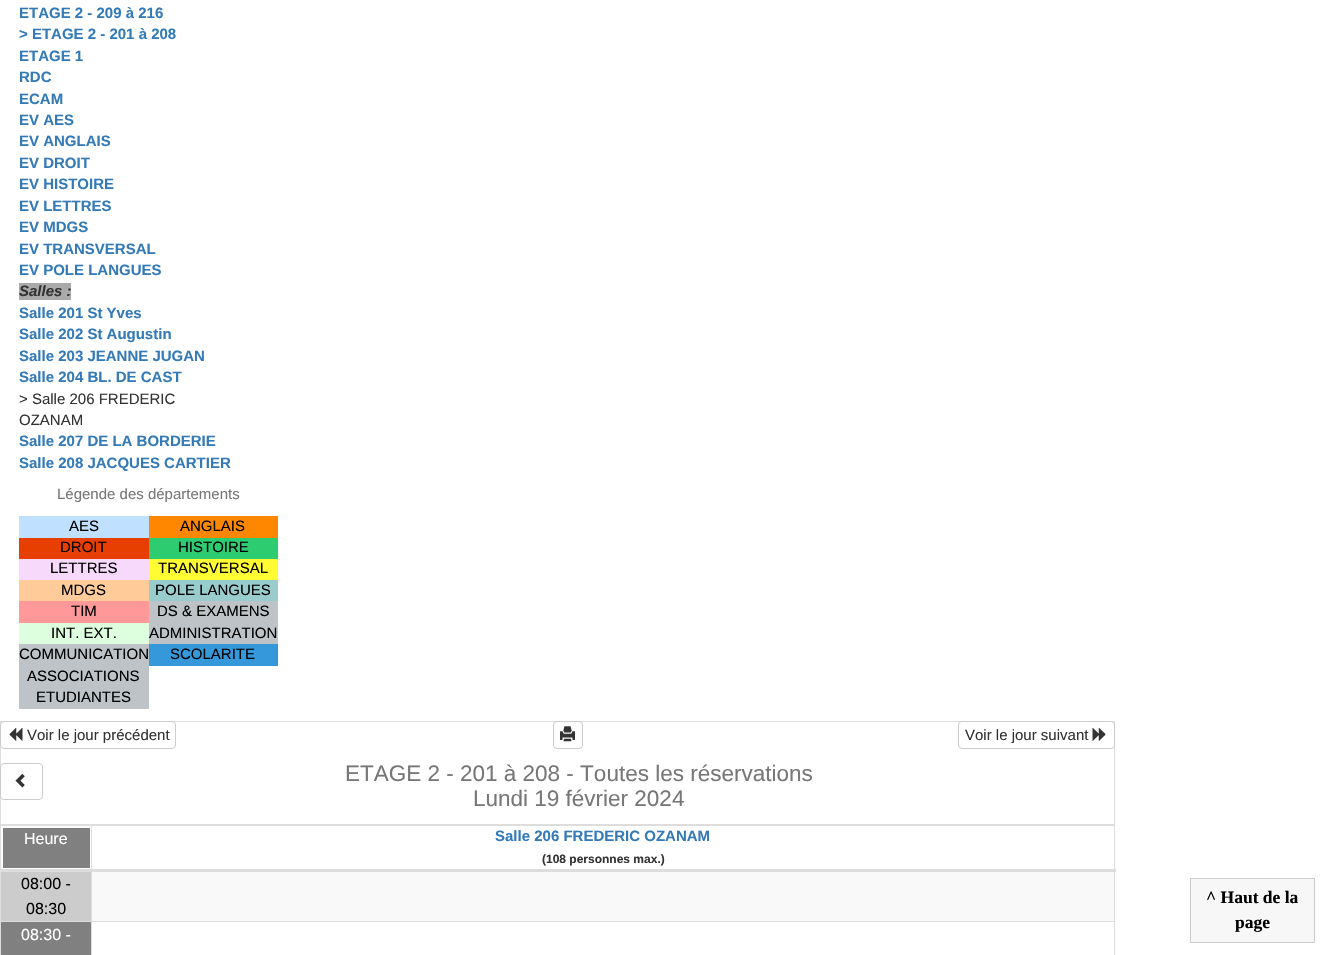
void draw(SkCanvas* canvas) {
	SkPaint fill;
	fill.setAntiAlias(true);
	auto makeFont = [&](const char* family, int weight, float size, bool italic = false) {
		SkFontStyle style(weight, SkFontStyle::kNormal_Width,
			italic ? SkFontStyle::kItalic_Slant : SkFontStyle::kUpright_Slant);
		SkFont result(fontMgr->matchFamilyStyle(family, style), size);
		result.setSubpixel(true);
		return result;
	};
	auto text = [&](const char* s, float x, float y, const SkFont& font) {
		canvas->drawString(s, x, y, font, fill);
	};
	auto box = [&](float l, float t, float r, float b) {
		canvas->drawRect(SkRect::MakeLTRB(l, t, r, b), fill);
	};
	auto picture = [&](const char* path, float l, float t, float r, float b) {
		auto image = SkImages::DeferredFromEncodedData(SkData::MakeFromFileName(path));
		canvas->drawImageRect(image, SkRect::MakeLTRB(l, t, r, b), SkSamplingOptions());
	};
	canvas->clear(0xFFFFFFFF);
	fill.setColor(0xFFAAAAAA);
	box(19, 283, 71, 300);
	fill.setColor(0xFFC0E0FF);
	box(19, 516, 149, 538);
	fill.setColor(0xFFFF8700);
	box(149, 516, 278, 538);
	fill.setColor(0xFFE73E01);
	box(19, 538, 149, 559);
	fill.setColor(0xFF2ECC71);
	box(149, 538, 278, 559);
	fill.setColor(0xFFF6D9FB);
	box(19, 559, 149, 580);
	fill.setColor(0xFFFFFC33);
	box(149, 559, 278, 580);
	fill.setColor(0xFFFFCC99);
	box(19, 580, 149, 601);
	fill.setColor(0xFF99CCCC);
	box(149, 580, 278, 601);
	fill.setColor(0xFFFF9999);
	box(19, 601, 149, 623);
	fill.setColor(0xFFBDC3C7);
	box(149, 601, 278, 644);
	fill.setColor(0xFFDDFFDD);
	box(19, 623, 149, 644);
	fill.setColor(0xFFBDC3C7);
	box(19, 644, 149, 709);
	fill.setColor(0xFF3498DB);
	box(149, 644, 278, 666);
	fill.setColor(0xFFDDDDDD);
	box(0, 721, 1115, 722);
	box(1114, 721, 1115, 955);
	box(0, 721, 1, 955);
	fill.setColor(0xFFFFFFFF);
	canvas->drawRoundRect(SkRect::MakeLTRB(0.5f, 721.5f, 175.5f, 748.5f), 3.5f, 3.5f, fill);
	fill.setStyle(SkPaint::kStroke_Style);
	fill.setStrokeWidth(1);
	fill.setColor(0xFFCCCCCC);
	canvas->drawRoundRect(SkRect::MakeLTRB(0.5f, 721.5f, 175.5f, 748.5f), 3.5f, 3.5f, fill);
	picture("image0.png", 9, 727, 23, 741);
	fill.setStyle(SkPaint::kFill_Style);
	fill.setColor(0xFFFFFFFF);
	canvas->drawRoundRect(SkRect::MakeLTRB(553.5f, 721.5f, 582.5f, 748.5f), 3.5f, 3.5f, fill);
	fill.setStyle(SkPaint::kStroke_Style);
	fill.setColor(0xFFCCCCCC);
	canvas->drawRoundRect(SkRect::MakeLTRB(553.5f, 721.5f, 582.5f, 748.5f), 3.5f, 3.5f, fill);
	picture("image1.png", 560, 726, 575, 742);
	fill.setStyle(SkPaint::kFill_Style);
	fill.setColor(0xFFFFFFFF);
	canvas->drawRoundRect(SkRect::MakeLTRB(958.5f, 721.5f, 1114.5f, 748.5f), 3.5f, 3.5f, fill);
	fill.setStyle(SkPaint::kStroke_Style);
	fill.setColor(0xFFCCCCCC);
	canvas->drawRoundRect(SkRect::MakeLTRB(958.5f, 721.5f, 1114.5f, 748.5f), 3.5f, 3.5f, fill);
	picture("image2.png", 1092, 727, 1106, 741);
	fill.setStyle(SkPaint::kFill_Style);
	fill.setColor(0xFFFFFFFF);
	canvas->drawRoundRect(SkRect::MakeLTRB(0.5f, 763.5f, 42.5f, 799.5f), 3.5f, 3.5f, fill);
	fill.setStyle(SkPaint::kStroke_Style);
	fill.setColor(0xFFCCCCCC);
	canvas->drawRoundRect(SkRect::MakeLTRB(0.5f, 763.5f, 42.5f, 799.5f), 3.5f, 3.5f, fill);
	picture("image3.png", 15, 773, 25, 788);
	fill.setStyle(SkPaint::kFill_Style);
	fill.setColor(0xFFDDDDDD);
	box(91, 824, 1115, 825);
	box(91, 921, 1115, 922);
	box(91, 921, 92, 955);
	box(0, 921, 93, 922);
	box(91, 869, 92, 923);
	box(91, 824, 92, 870);
	box(0, 869, 1116, 872);
	box(0, 824, 93, 825);
	fill.setColor(0xFFF9F9F9);
	box(92, 872, 1114, 921);
	fill.setColor(0xFFCCCCCC);
	box(1, 872, 91, 921);
	fill.setColor(0xFF808080);
	box(1, 922, 91, 955);
	fill.setColor(0xFFDDDDDD);
	box(0, 825, 1115, 826);
	fill.setColor(0xFF808080);
	box(3, 828, 90, 868);
	fill.setColor(0xFFF7F7F7);
	canvas->drawRect(SkRect::MakeLTRB(1190.5f, 878.5f, 1314.5f, 942.5f), fill);
	fill.setStyle(SkPaint::kStroke_Style);
	fill.setColor(0xFFCCCCCC);
	canvas->drawRect(SkRect::MakeLTRB(1190.5f, 878.5f, 1314.5f, 942.5f), fill);
	auto font1 = makeFont("Liberation Sans", 700, 15);
	fill.setStyle(SkPaint::kFill_Style);
	fill.setColor(0xFF337AB7);
	text("ETAGE 2 - 209 à 216", 19, 18, font1);
	text("> ETAGE 2 - 201 à 208", 19, 39, font1);
	text("ETAGE 1", 19, 61, font1);
	text("RDC", 19, 82, font1);
	text("ECAM", 19, 104, font1);
	text("EV AES", 19, 125, font1);
	text("EV ANGLAIS", 19, 146, font1);
	text("EV DROIT", 19, 168, font1);
	text("EV HISTOIRE", 19, 189, font1);
	text("EV LETTRES", 19, 211, font1);
	text("EV MDGS", 19, 232, font1);
	text("EV TRANSVERSAL", 19, 254, font1);
	text("EV POLE LANGUES", 19, 275, font1);
	auto font2 = makeFont("Liberation Sans", 700, 15, true);
	fill.setColor(0xFF333333);
	text("Salles :", 19, 296, font2);
	fill.setColor(0xFF337AB7);
	text("Salle 201 St Yves", 19, 318, font1);
	text("Salle 202 St Augustin", 19, 339, font1);
	text("Salle 203 JEANNE JUGAN", 19, 361, font1);
	text("Salle 204 BL. DE CAST", 19, 382, font1);
	auto font3 = makeFont("Liberation Sans", 400, 15);
	fill.setColor(0xFF333333);
	text("> Salle 206 FREDERIC", 19, 404, font3);
	text("OZANAM", 19, 425, font3);
	fill.setColor(0xFF337AB7);
	text("Salle 207 DE LA BORDERIE", 19, 446, font1);
	text("Salle 208 JACQUES CARTIER", 19, 468, font1);
	fill.setColor(0xFF777777);
	text("Légende des départements", 57, 499, font3);
	fill.setColor(0xFF000000);
	text("AES", 69, 531, font3);
	text("ANGLAIS", 180, 531, font3);
	text("DROIT", 60, 552, font3);
	text("HISTOIRE", 178, 552, font3);
	text("LETTRES", 50, 573, font3);
	text("TRANSVERSAL", 158, 573, font3);
	text("MDGS", 61, 595, font3);
	text("POLE LANGUES", 155, 595, font3);
	text("TIM", 71, 616, font3);
	text("DS & EXAMENS", 157, 616, font3);
	text("INT. EXT.", 51, 638, font3);
	text("ADMINISTRATION", 149, 638, font3);
	text("COMMUNICATION", 19, 659, font3);
	text("SCOLARITE", 170, 659, font3);
	text("ASSOCIATIONS", 27, 681, font3);
	text("ETUDIANTES", 36, 702, font3);
	fill.setColor(0xFF333333);
	text("Voir le jour précédent", 27, 740, font3);
	text("Voir le jour suivant", 965, 740, font3);
	auto font4 = makeFont("Liberation Sans", 400, 22.5f);
	fill.setColor(0xFF777777);
	text("ETAGE 2 - 201 à 208 - Toutes les réservations", 345, 781, font4);
	text("Lundi 19 février 2024", 473, 806, font4);
	auto font5 = makeFont("Liberation Sans", 400, 16);
	fill.setColor(0xFF000000);
	text("08:00 -", 21, 889, font5);
	text("08:30", 26, 914, font5);
	fill.setColor(0xFFFFFFFF);
	text("08:30 -", 21, 940, font5);
	text("Heure", 24, 844, font5);
	fill.setColor(0xFF337AB7);
	text("Salle 206 FREDERIC OZANAM", 495, 841, font1);
	auto font6 = makeFont("Liberation Sans", 700, 12);
	fill.setColor(0xFF333333);
	text("(108 personnes max.)", 542, 863, font6);
	auto font7 = makeFont("Liberation Serif", 700, 17.5f);
	fill.setColor(0xFF000000);
	text("^ Haut de la", 1206, 903, font7);
	text("page", 1235, 928, font7);
}
